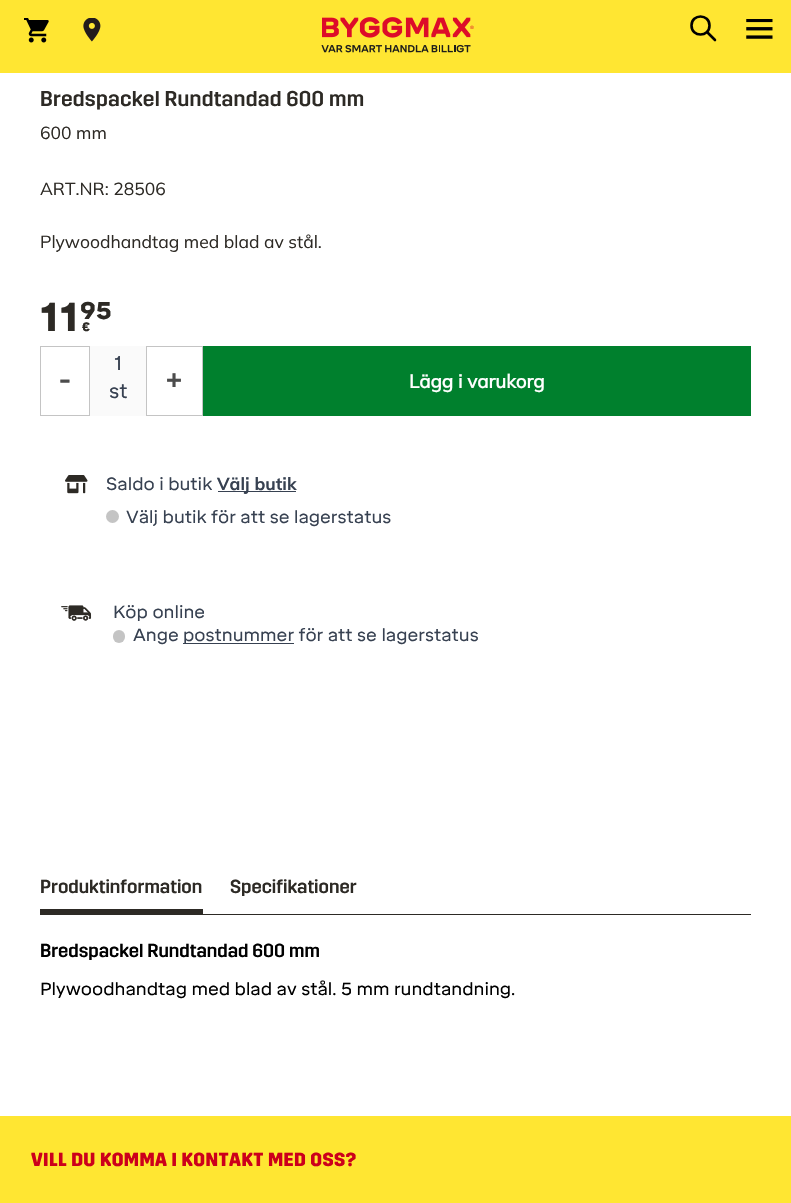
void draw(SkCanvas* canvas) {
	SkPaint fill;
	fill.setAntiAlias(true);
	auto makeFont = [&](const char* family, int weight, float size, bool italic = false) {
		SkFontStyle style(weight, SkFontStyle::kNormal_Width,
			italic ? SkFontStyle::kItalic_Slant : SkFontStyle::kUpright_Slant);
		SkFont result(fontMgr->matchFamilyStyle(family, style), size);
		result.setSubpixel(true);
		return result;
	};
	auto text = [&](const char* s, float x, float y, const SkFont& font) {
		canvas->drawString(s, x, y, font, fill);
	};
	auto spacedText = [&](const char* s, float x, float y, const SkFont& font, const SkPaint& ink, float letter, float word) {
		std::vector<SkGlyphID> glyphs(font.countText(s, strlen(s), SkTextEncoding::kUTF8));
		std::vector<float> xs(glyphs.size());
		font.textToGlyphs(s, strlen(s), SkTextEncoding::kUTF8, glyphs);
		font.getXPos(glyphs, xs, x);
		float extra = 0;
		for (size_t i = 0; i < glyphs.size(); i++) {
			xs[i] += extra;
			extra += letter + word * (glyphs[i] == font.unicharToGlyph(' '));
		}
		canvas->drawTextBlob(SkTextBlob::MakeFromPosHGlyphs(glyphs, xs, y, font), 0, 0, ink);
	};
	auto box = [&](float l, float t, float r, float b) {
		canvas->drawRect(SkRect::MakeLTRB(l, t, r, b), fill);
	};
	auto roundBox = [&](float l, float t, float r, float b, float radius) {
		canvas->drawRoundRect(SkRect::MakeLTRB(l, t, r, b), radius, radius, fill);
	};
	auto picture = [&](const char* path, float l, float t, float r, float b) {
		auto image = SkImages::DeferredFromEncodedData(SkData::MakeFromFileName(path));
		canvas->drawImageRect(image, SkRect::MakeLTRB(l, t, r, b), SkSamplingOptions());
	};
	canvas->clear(0xFFFFFFFF);
	fill.setColor(0xFFFFE632);
	box(0, 0, 791, 73);
	picture("image0.png", 24, 18, 49, 43);
	picture("image1.png", 83, 18, 101, 42);
	picture("image2.png", 321, 17, 474, 53);
	fill.setStyle(SkPaint::kStroke_Style);
	fill.setStrokeWidth(2.6f);
	fill.setStrokeCap(SkPaint::kRound_Cap);
	fill.setStrokeJoin(SkPaint::kRound_Join);
	fill.setColor(0xFF000000);
	canvas->drawPath(SkPathBuilder().moveTo(715, 40).lineTo(707, 32).moveTo(709.5f, 25.5f).cubicTo(709.5f, 37.5f, 691.5f, 37.5f, 691.5f, 25.5f).cubicTo(691.5f, 13.5f, 709.5f, 13.5f, 709.5f, 25.5f).close().detach(), fill);
	picture("image3.png", 746, 19, 773, 39);
	fill.setStrokeWidth(1);
	fill.setStrokeCap(SkPaint::kButt_Cap);
	fill.setStrokeJoin(SkPaint::kMiter_Join);
	fill.setColor(0xFFC4C4C4);
	canvas->drawRect(SkRect::MakeLTRB(40.5f, 346.5f, 89.5f, 415.5f), fill);
	fill.setStyle(SkPaint::kFill_Style);
	fill.setColor(0xFFFAFAFA);
	box(90, 346, 146, 416);
	fill.setStyle(SkPaint::kStroke_Style);
	fill.setColor(0xFFC4C4C4);
	canvas->drawRect(SkRect::MakeLTRB(146.5f, 346.5f, 202.5f, 415.5f), fill);
	fill.setStyle(SkPaint::kFill_Style);
	fill.setColor(0xFF00802D);
	box(203, 346, 751, 416);
	picture("image4.png", 65, 475, 88, 494);
	fill.setColor(0xFF374151);
	box(218, 491, 296, 492);
	fill.setColor(0xFFC4C4C4);
	canvas->drawCircle(112.5f, 516.5f, 6.5f, fill);
	picture("image5.png", 61, 605, 92, 621);
	roundBox(113, 630, 125, 643, 6);
	fill.setColor(0xFF374151);
	box(183, 643, 294, 644);
	fill.setColor(0xFF2D2A25);
	box(40, 914, 751, 915);
	box(40, 909, 203, 914);
	fill.setColor(0xFFFFE632);
	box(0, 1116, 791, 1203);
	auto font1 = makeFont("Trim", 500, 21.25f);
	fill.setColor(0xFF2D2A25);
	spacedText("Bredspackel Rundtandad 600 mm", 40, 106, font1, fill, 0.25f, 0);
	auto font2 = makeFont("Mulish", 400, 17.5f);
	text("600 mm", 40, 139, font2);
	text("ART.NR: 28506", 40, 195, font2);
	text("Plywoodhandtag med blad av stål.", 40, 248, font2);
	auto font3 = makeFont("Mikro", 900, 40);
	spacedText("11", 40, 331, font3, fill, 0.25f, 0);
	auto font4 = makeFont("Mikro", 900, 24);
	spacedText("95", 80, 319, font4, fill, 0.25f, 0);
	auto font5 = makeFont("Mikro", 900, 12);
	spacedText("€", 82, 331, font5, fill, 0.25f, 0);
	auto font6 = makeFont("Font", 700, 25);
	fill.setColor(0xFF4C4C4C);
	text("-", 59, 389, font6);
	auto font7 = makeFont("Font", 400, 20);
	fill.setColor(0xFF374151);
	text("1", 114, 370, font7);
	text("st", 109, 398, font7);
	fill.setColor(0xFF4C4C4C);
	text("+", 166, 389, font6);
	auto font8 = makeFont("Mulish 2", 700, 18.75f);
	fill.setColor(0xFFFFFFFF);
	text("Lägg i varukorg", 409, 388, font8);
	auto font9 = makeFont("Font", 400, 17.5f);
	fill.setColor(0xFF374151);
	text("Saldo i butik", 106, 490, font9);
	auto font10 = makeFont("Mulish", 700, 17.5f);
	text("Välj butik", 217, 490, font10);
	text("Välj butik för att se lagerstatus", 126, 523, font9);
	text("Köp online", 113, 618, font9);
	text("Ange", 133, 641, font9);
	text("postnummer för att se lagerstatus", 183, 641, font9);
	auto font11 = makeFont("Trim", 500, 18.75f);
	fill.setColor(0xFF2D2A25);
	text("Produktinformation", 40, 893, font11);
	text("Specifikationer", 230, 893, font11);
	fill.setColor(0xFF000000);
	text("Bredspackel Rundtandad 600 mm", 40, 957, font11);
	text("Plywoodhandtag med blad av stål. 5 mm rundtandning.", 40, 995, font9);
	auto font12 = makeFont("Trim", 700, 18.75f);
	fill.setColor(0xFFCC001B);
	spacedText("VILL DU KOMMA I KONTAKT MED OSS?", 31, 1166, font12, fill, 0.4f, 0);
}
